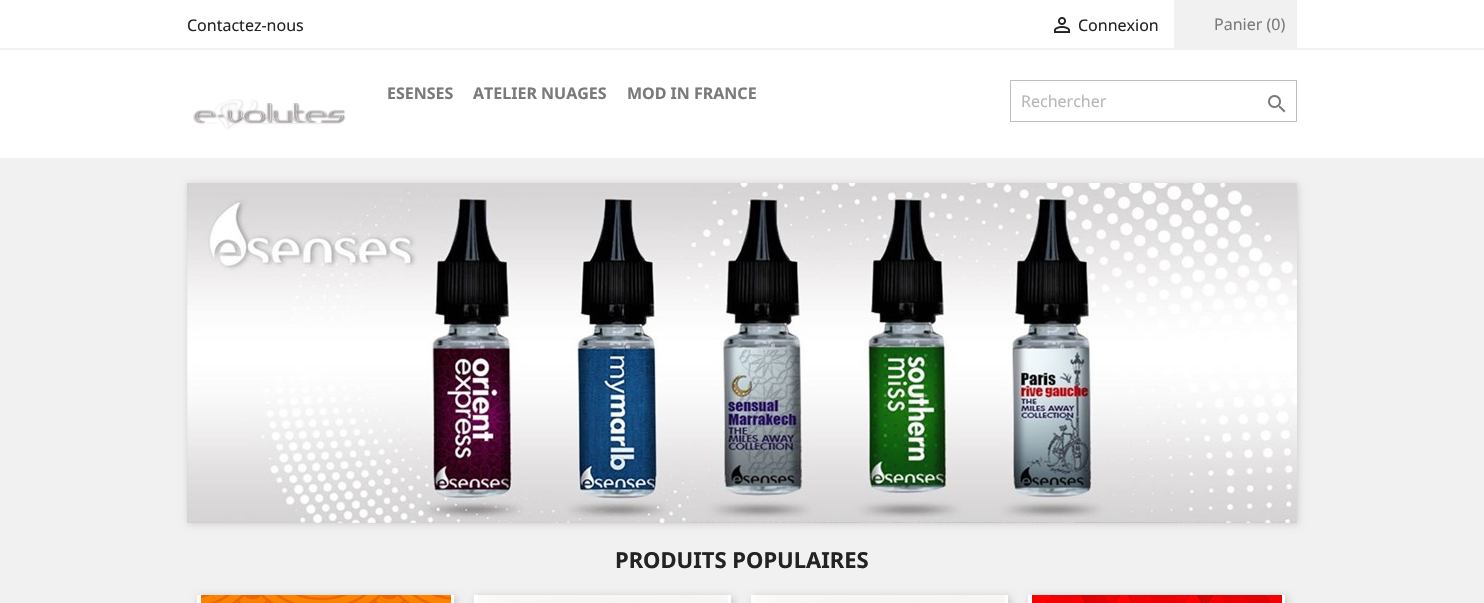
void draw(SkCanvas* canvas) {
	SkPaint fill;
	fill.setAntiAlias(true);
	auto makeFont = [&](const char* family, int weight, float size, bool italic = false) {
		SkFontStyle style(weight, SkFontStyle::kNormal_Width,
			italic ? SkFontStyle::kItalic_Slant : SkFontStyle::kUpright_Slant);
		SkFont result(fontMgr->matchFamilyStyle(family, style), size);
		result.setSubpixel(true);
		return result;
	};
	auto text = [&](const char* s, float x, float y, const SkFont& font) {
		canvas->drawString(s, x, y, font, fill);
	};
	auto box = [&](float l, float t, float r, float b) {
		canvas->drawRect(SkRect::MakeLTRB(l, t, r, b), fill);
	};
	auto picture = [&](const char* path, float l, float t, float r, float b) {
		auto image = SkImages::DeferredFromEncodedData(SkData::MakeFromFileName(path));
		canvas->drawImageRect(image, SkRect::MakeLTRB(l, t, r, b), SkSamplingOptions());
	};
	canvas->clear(0xFFFFFFFF);
	fill.setColor(0xFFF1F1F1);
	box(0, 48, 1484, 50);
	picture("image0.png", 1054, 17, 1070, 33);
	box(1174, 0, 1297, 48);
	picture("image1.png", 193, 99, 346, 130);
	fill.setStyle(SkPaint::kStroke_Style);
	fill.setStrokeWidth(1);
	fill.setColor(0xFFBFBFBF);
	canvas->drawRect(SkRect::MakeLTRB(1010.5f, 80.5f, 1296.5f, 121.5f), fill);
	picture("image2.png", 1268, 95, 1286, 113);
	fill.setStyle(SkPaint::kFill_Style);
	fill.setColor(0xFFF1F1F1);
	box(0, 158, 1484, 603);
	fill.setColor(0x26000000);
	fill.setMaskFilter(SkMaskFilter::MakeBlur(kNormal_SkBlurStyle, 3.5f));
	canvas->drawRect(SkRect::MakeLTRB(188, 184, 1298, 524), fill);
	fill.setMaskFilter(nullptr);
	picture("image3.png", 187, 183, 1297, 523);
	fill.setColor(0x33000000);
	fill.setMaskFilter(SkMaskFilter::MakeBlur(kNormal_SkBlurStyle, 4));
	canvas->drawRect(SkRect::MakeLTRB(199, 597, 456, 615), fill);
	fill.setMaskFilter(nullptr);
	fill.setColor(0xFFFFFFFF);
	box(197, 595, 454, 603);
	picture("image4.png", 201, 595, 451, 603);
	fill.setColor(0x33000000);
	fill.setMaskFilter(SkMaskFilter::MakeBlur(kNormal_SkBlurStyle, 4));
	canvas->drawRect(SkRect::MakeLTRB(476, 597, 733, 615), fill);
	fill.setMaskFilter(nullptr);
	fill.setColor(0xFFFFFFFF);
	box(474, 595, 731, 603);
	picture("image5.png", 478, 595, 728, 603);
	fill.setColor(0x33000000);
	fill.setMaskFilter(SkMaskFilter::MakeBlur(kNormal_SkBlurStyle, 4));
	canvas->drawRect(SkRect::MakeLTRB(753, 597, 1010, 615), fill);
	fill.setMaskFilter(nullptr);
	fill.setColor(0xFFFFFFFF);
	box(751, 595, 1008, 603);
	picture("image5.png", 755, 595, 1005, 603);
	fill.setColor(0x33000000);
	fill.setMaskFilter(SkMaskFilter::MakeBlur(kNormal_SkBlurStyle, 4));
	canvas->drawRect(SkRect::MakeLTRB(1030, 597, 1287, 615), fill);
	fill.setMaskFilter(nullptr);
	fill.setColor(0xFFFFFFFF);
	box(1028, 595, 1285, 603);
	picture("image6.png", 1032, 595, 1282, 603);
	auto font1 = makeFont("Noto Sans", 400, 16);
	fill.setColor(0xFF232323);
	text("Contactez-nous", 187, 31, font1);
	text("Connexion", 1078, 31, font1);
	fill.setColor(0xFF7A7A7A);
	text("Panier (0)", 1214, 30, font1);
	auto font2 = makeFont("Noto Sans", 700, 16);
	text("ESENSES", 387, 99, font2);
	text("ATELIER NUAGES", 473, 99, font2);
	text("MOD IN FRANCE", 627, 99, font2);
	fill.setColor(0xFFB7B7B7);
	text("Rechercher", 1021, 107, font1);
	auto font3 = makeFont("Noto Sans", 700, 22);
	fill.setColor(0xFF232323);
	text("PRODUITS POPULAIRES", 615, 568, font3);
}
